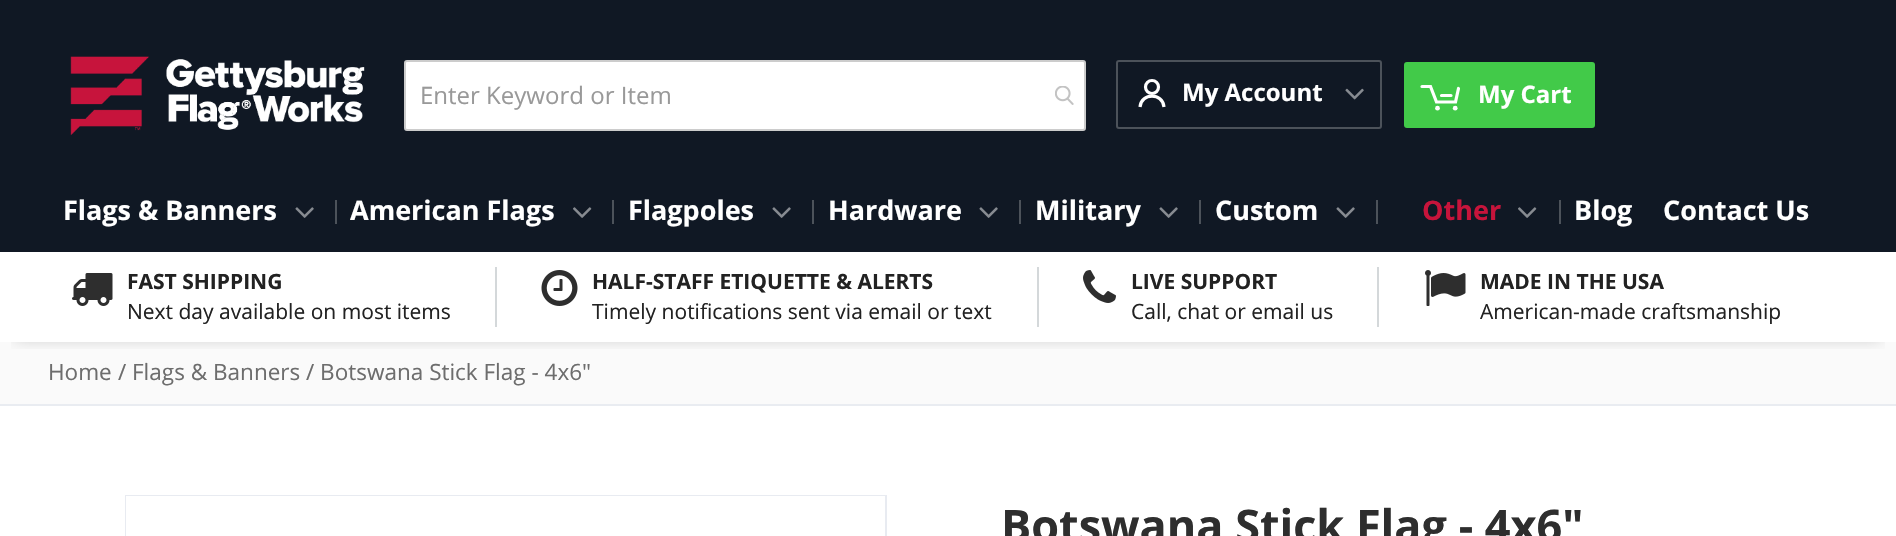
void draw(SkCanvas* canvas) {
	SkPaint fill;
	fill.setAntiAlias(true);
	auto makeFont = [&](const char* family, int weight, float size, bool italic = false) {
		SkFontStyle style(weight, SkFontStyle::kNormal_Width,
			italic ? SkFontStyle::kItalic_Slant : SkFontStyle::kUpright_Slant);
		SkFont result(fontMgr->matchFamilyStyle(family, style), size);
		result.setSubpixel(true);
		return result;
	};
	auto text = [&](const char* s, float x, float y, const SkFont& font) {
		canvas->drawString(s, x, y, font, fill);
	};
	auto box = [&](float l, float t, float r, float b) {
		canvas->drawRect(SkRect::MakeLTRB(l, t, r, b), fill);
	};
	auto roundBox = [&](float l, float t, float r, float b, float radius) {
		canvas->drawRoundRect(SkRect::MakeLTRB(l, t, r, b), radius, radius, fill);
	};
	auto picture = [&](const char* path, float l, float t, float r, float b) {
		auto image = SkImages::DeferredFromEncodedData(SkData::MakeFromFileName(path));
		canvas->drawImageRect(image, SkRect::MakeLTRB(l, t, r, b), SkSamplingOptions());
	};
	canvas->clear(0xFFFFFFFF);
	fill.setColor(0xFF101824);
	box(0, 0, 1896, 252);
	picture("image0.png", 70, 56, 365, 135);
	fill.setColor(0xFFFFFFFF);
	box(406, 62, 1084, 129);
	fill.setStyle(SkPaint::kStroke_Style);
	fill.setStrokeWidth(2);
	fill.setColor(0xFFCCCCCC);
	canvas->drawRoundRect(SkRect::MakeLTRB(405, 61, 1085, 130), 2, 2, fill);
	picture("image1.png", 1055, 86, 1074, 105);
	fill.setColor(0xFF4C525A);
	canvas->drawRoundRect(SkRect::MakeLTRB(1117, 61, 1381, 128), 2, 2, fill);
	fill.setStrokeWidth(3.2f);
	fill.setColor(0xFFFFFFFF);
	canvas->drawCircle(1152, 87, 6.5f, fill);
	canvas->drawPath(SkPathBuilder().moveTo(1164, 107).cubicTo(1162.5f, 92.5f, 1141.5f, 92.5f, 1140, 107).detach(), fill);
	picture("image2.png", 1345, 88, 1364, 100);
	fill.setStyle(SkPaint::kFill_Style);
	fill.setColor(0xFF42CA49);
	roundBox(1404, 62, 1595, 128, 3);
	fill.setStyle(SkPaint::kStroke_Style);
	fill.setStrokeCap(SkPaint::kRound_Cap);
	fill.setColor(0xFFFFFFFF);
	canvas->drawPath(SkPathBuilder().moveTo(1422, 86.5f).lineTo(1430.5f, 86.5f).lineTo(1436.5f, 102).lineTo(1455.5f, 102).lineTo(1458.5f, 88.5f).moveTo(1441.5f, 95.5f).lineTo(1451, 95.5f).detach(), fill);
	fill.setStyle(SkPaint::kFill_Style);
	canvas->drawCircle(1437.5f, 108.2f, 2.4f, fill);
	canvas->drawCircle(1455.2f, 108.2f, 2.4f, fill);
	picture("image3.png", 295, 207, 314, 218);
	fill.setColor(0xFF4C525A);
	box(335, 200, 337, 224);
	picture("image4.png", 573, 207, 592, 218);
	box(612, 200, 614, 224);
	picture("image3.png", 772, 207, 791, 218);
	box(812, 200, 814, 224);
	picture("image3.png", 979, 207, 998, 218);
	box(1019, 200, 1021, 224);
	picture("image3.png", 1159, 207, 1178, 218);
	box(1199, 200, 1201, 224);
	picture("image3.png", 1336, 207, 1355, 218);
	box(1376, 200, 1378, 224);
	picture("image4.png", 1518, 207, 1537, 218);
	box(1559, 200, 1561, 224);
	fill.setColor(0xFFFAFAFA);
	box(0, 342, 1896, 404);
	canvas->save();
	canvas->clipRect(SkRect::MakeLTRB(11, 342, 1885, 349));
	fill.setColor(0x33000000);
	fill.setMaskFilter(SkMaskFilter::MakeBlur(kNormal_SkBlurStyle, 7.5f));
	canvas->drawRect(SkRect::MakeLTRB(15, 279, 1881, 339), fill);
	fill.setMaskFilter(nullptr);
	canvas->restore();
	picture("image5.png", 72, 273, 113, 306);
	fill.setColor(0xFFD4D8DA);
	box(495, 267, 497, 327);
	picture("image6.png", 541, 270, 578, 306);
	box(1037, 267, 1039, 327);
	picture("image7.png", 1083, 270, 1116, 303);
	box(1377, 267, 1379, 327);
	picture("image8.png", 1425, 270, 1466, 306);
	fill.setColor(0xFFE9ECF1);
	box(0, 404, 1896, 406);
	fill.setStyle(SkPaint::kStroke_Style);
	fill.setStrokeWidth(2);
	fill.setStrokeCap(SkPaint::kButt_Cap);
	fill.setColor(0xFFE8EBF1);
	canvas->drawRect(SkRect::MakeLTRB(126, 496, 886, 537), fill);
	fill.setStyle(SkPaint::kFill_Style);
	fill.setColor(0xFFFFFFFF);
	box(126, 496, 885, 536);
	auto font1 = makeFont("Open Sans", 400, 24);
	fill.setColor(0xFF999999);
	text("Enter Keyword or Item", 420, 104, font1);
	auto font2 = makeFont("Open Sans", 700, 24);
	fill.setColor(0xFFFFFFFF);
	text("My Account", 1182, 101, font2);
	text("My Cart", 1478, 103, font2);
	auto font3 = makeFont("Open Sans", 700, 27);
	text("Flags & Banners", 63, 220, font3);
	text("American Flags", 350, 220, font3);
	text("Flagpoles", 628, 220, font3);
	text("Hardware", 828, 220, font3);
	text("Military", 1035, 220, font3);
	text("Custom", 1215, 220, font3);
	fill.setColor(0xFFC7143B);
	text("Other", 1422, 220, font3);
	fill.setColor(0xFFFFFFFF);
	text("Blog", 1574, 220, font3);
	text("Contact Us", 1663, 220, font3);
	auto font4 = makeFont("Open Sans", 700, 21);
	fill.setColor(0xFF222222);
	text("FAST SHIPPING", 127, 289, font4);
	auto font5 = makeFont("Open Sans", 400, 21);
	text("Next day available on most items", 127, 319, font5);
	text("HALF-STAFF ETIQUETTE & ALERTS", 592, 289, font4);
	text("Timely notifications sent via email or text", 592, 319, font5);
	text("LIVE SUPPORT", 1131, 289, font4);
	text("Call, chat or email us", 1131, 319, font5);
	text("MADE IN THE USA", 1480, 289, font4);
	text("American-made craftsmanship", 1480, 319, font5);
	auto font6 = makeFont("Open Sans", 400, 22.5f);
	fill.setColor(0xFF6D6D6D);
	text("Home", 48, 380, font6);
	text("/", 118, 380, font6);
	text("Flags & Banners", 132, 380, font6);
	text("/ Botswana Stick Flag - 4x6\"", 306, 380, font6);
	auto font7 = makeFont("Open Sans", 700, 45);
	fill.setColor(0xFF2E2E2E);
	text("Botswana Stick Flag - 4x6\"", 1001, 542, font7);
}
